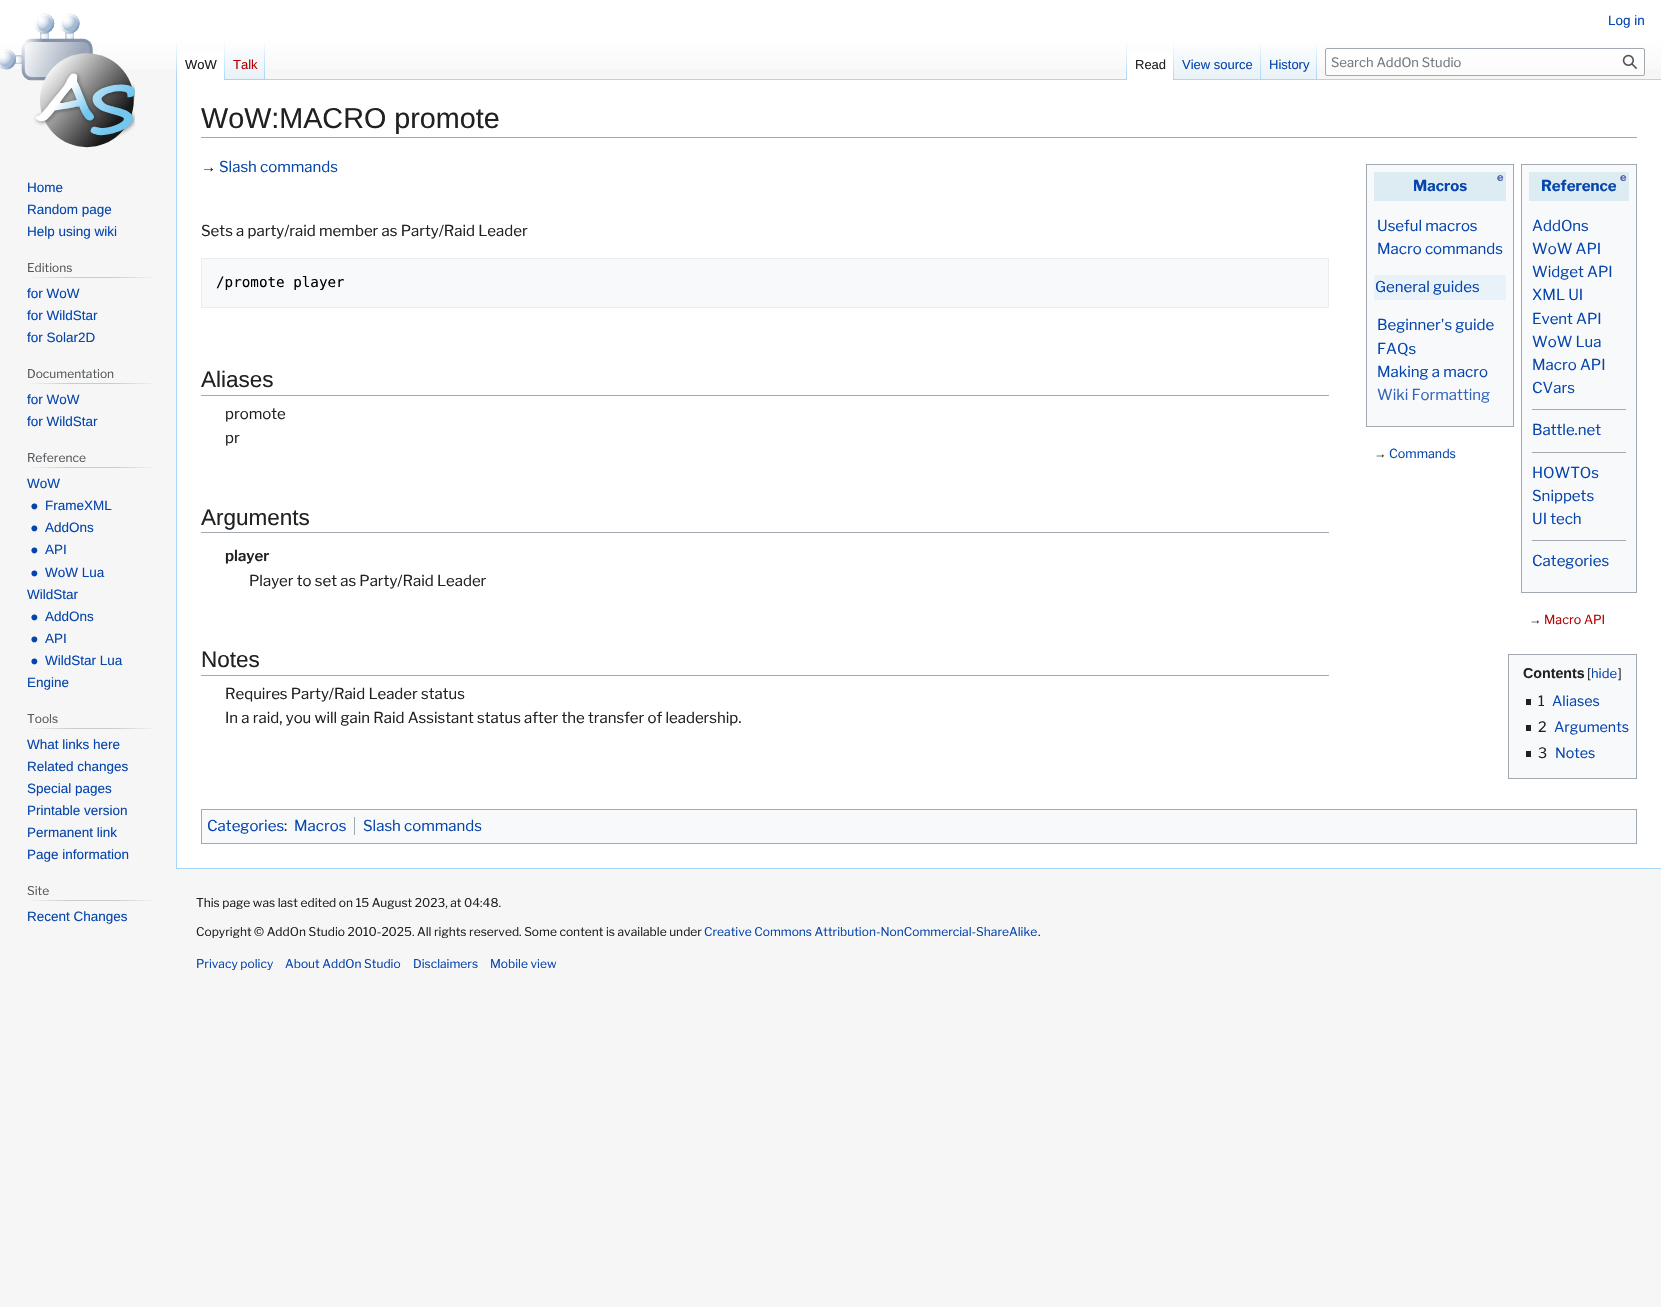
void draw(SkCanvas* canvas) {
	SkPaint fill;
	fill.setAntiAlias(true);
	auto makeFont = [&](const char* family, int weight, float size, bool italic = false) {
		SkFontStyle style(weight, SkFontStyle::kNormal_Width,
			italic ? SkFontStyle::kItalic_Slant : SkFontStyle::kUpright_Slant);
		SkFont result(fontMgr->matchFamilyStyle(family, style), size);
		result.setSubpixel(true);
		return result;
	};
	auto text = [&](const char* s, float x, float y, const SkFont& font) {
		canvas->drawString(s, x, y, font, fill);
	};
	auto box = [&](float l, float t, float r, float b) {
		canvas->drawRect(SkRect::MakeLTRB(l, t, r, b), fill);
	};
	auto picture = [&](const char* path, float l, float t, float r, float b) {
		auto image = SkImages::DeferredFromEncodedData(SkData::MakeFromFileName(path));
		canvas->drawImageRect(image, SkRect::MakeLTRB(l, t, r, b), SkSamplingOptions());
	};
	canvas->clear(0xFFF6F6F6);
	{
		const SkColor colors[] = {0xFFFFFFFF, 0xFFF6F6F6};
		const float stops[] = {0.5f, 1};
		const SkPoint ends[] = {{831, 0}, {831, 80}};
		fill.setShader(SkGradientShader::MakeLinear(ends, colors, stops, 2, SkTileMode::kClamp));
		fill.setAlpha(255);
	}
	box(0, 0, 1661, 69);
	fill.setShader(nullptr);
	fill.setColor(0xFFA7D7F9);
	box(176, 868, 1661, 869);
	box(176, 79, 177, 869);
	{
		const SkColor colors[] = {0x00A7D7F9, 0xFFA7D7F9};
		const float stops[] = {0, 1};
		const SkPoint ends[] = {{177, 40}, {177, 80}};
		fill.setShader(SkGradientShader::MakeLinear(ends, colors, stops, 2, SkTileMode::kClamp));
		fill.setAlpha(255);
	}
	box(176, 40, 177, 80);
	fill.setShader(nullptr);
	fill.setColor(0xFFFFFFFF);
	box(177, 51, 224, 80);
	{
		const SkColor colors[] = {0xFFFFFFFF, 0xFFA7D7F9};
		const float stops[] = {0, 1};
		const SkPoint ends[] = {{225, 40}, {225, 80}};
		fill.setShader(SkGradientShader::MakeLinear(ends, colors, stops, 2, SkTileMode::kClamp));
		fill.setAlpha(255);
	}
	box(224, 40, 225, 80);
	{
		const SkColor colors[] = {0xFF77C1F6, 0xFFE8F2F8, 0xFFFFFFFF};
		const float stops[] = {0, 0.03f, 1};
		const SkPoint ends[] = {{245, 80}, {245, 40}};
		fill.setShader(SkGradientShader::MakeLinear(ends, colors, stops, 3, SkTileMode::kClamp));
		fill.setAlpha(255);
	}
	box(225, 46, 265, 80);
	{
		const SkColor colors[] = {0x00A7D7F9, 0xFFA7D7F9};
		const float stops[] = {0, 1};
		const SkPoint ends[] = {{265, 40}, {265, 80}};
		fill.setShader(SkGradientShader::MakeLinear(ends, colors, stops, 2, SkTileMode::kClamp));
		fill.setAlpha(255);
	}
	box(264, 40, 265, 80);
	fill.setShader(nullptr);
	fill.setColor(0xFFA7D7F9);
	box(265, 79, 1661, 80);
	{
		const SkColor colors[] = {0x00A7D7F9, 0xFFA7D7F9};
		const float stops[] = {0, 1};
		const SkPoint ends[] = {{1127, 40}, {1127, 80}};
		fill.setShader(SkGradientShader::MakeLinear(ends, colors, stops, 2, SkTileMode::kClamp));
		fill.setAlpha(255);
	}
	box(1126, 40, 1127, 80);
	fill.setShader(nullptr);
	fill.setColor(0xFFFFFFFF);
	box(1127, 51, 1173, 80);
	{
		const SkColor colors[] = {0xFFFFFFFF, 0xFFA7D7F9};
		const float stops[] = {0, 1};
		const SkPoint ends[] = {{1174, 40}, {1174, 80}};
		fill.setShader(SkGradientShader::MakeLinear(ends, colors, stops, 2, SkTileMode::kClamp));
		fill.setAlpha(255);
	}
	box(1173, 40, 1174, 80);
	{
		const SkColor colors[] = {0xFF77C1F6, 0xFFE8F2F8, 0xFFFFFFFF};
		const float stops[] = {0, 0.03f, 1};
		const SkPoint ends[] = {{1218, 80}, {1218, 40}};
		fill.setShader(SkGradientShader::MakeLinear(ends, colors, stops, 3, SkTileMode::kClamp));
		fill.setAlpha(255);
	}
	box(1174, 46, 1261, 79);
	{
		const SkColor colors[] = {0x00A7D7F9, 0xFFA7D7F9};
		const float stops[] = {0, 1};
		const SkPoint ends[] = {{1261, 40}, {1261, 80}};
		fill.setShader(SkGradientShader::MakeLinear(ends, colors, stops, 2, SkTileMode::kClamp));
		fill.setAlpha(255);
	}
	box(1260, 40, 1261, 80);
	{
		const SkColor colors[] = {0xFF77C1F6, 0xFFE8F2F8, 0xFFFFFFFF};
		const float stops[] = {0, 0.03f, 1};
		const SkPoint ends[] = {{1289, 80}, {1289, 40}};
		fill.setShader(SkGradientShader::MakeLinear(ends, colors, stops, 3, SkTileMode::kClamp));
		fill.setAlpha(255);
	}
	box(1261, 46, 1317, 79);
	{
		const SkColor colors[] = {0x00A7D7F9, 0xFFA7D7F9};
		const float stops[] = {0, 1};
		const SkPoint ends[] = {{1317, 40}, {1317, 80}};
		fill.setShader(SkGradientShader::MakeLinear(ends, colors, stops, 2, SkTileMode::kClamp));
		fill.setAlpha(255);
	}
	box(1316, 40, 1317, 80);
	fill.setShader(nullptr);
	fill.setColor(0x80FFFFFF);
	canvas->drawRoundRect(SkRect::MakeLTRB(1325.5f, 48.5f, 1644.5f, 75.5f), 1.5f, 1.5f, fill);
	fill.setStyle(SkPaint::kStroke_Style);
	fill.setStrokeWidth(1);
	fill.setColor(0xFFA2A9B1);
	canvas->drawRoundRect(SkRect::MakeLTRB(1325.5f, 48.5f, 1644.5f, 75.5f), 1.5f, 1.5f, fill);
	picture("image0.png", 1622, 54, 1637, 69);
	picture("image1.png", 0, 13, 135, 148);
	fill.setStyle(SkPaint::kFill_Style);
	{
		const SkColor colors[] = {0xFFF6F6F6, 0xFFC8CCD1, 0xFFC8CCD1, 0xFFF6F6F6};
		const float stops[] = {0, 0.33f, 0.66f, 1};
		const SkPoint ends[] = {{27, 278}, {158, 278}};
		fill.setShader(SkGradientShader::MakeLinear(ends, colors, stops, 4, SkTileMode::kClamp));
		fill.setAlpha(255);
	}
	box(27, 277, 158, 278);
	{
		const SkColor colors[] = {0xFFF6F6F6, 0xFFC8CCD1, 0xFFC8CCD1, 0xFFF6F6F6};
		const float stops[] = {0, 0.33f, 0.66f, 1};
		const SkPoint ends[] = {{27, 384}, {158, 384}};
		fill.setShader(SkGradientShader::MakeLinear(ends, colors, stops, 4, SkTileMode::kClamp));
		fill.setAlpha(255);
	}
	box(27, 383, 158, 384);
	{
		const SkColor colors[] = {0xFFF6F6F6, 0xFFC8CCD1, 0xFFC8CCD1, 0xFFF6F6F6};
		const float stops[] = {0, 0.33f, 0.66f, 1};
		const SkPoint ends[] = {{27, 468}, {158, 468}};
		fill.setShader(SkGradientShader::MakeLinear(ends, colors, stops, 4, SkTileMode::kClamp));
		fill.setAlpha(255);
	}
	box(27, 467, 158, 468);
	{
		const SkColor colors[] = {0xFFF6F6F6, 0xFFC8CCD1, 0xFFC8CCD1, 0xFFF6F6F6};
		const float stops[] = {0, 0.33f, 0.66f, 1};
		const SkPoint ends[] = {{27, 729}, {158, 729}};
		fill.setShader(SkGradientShader::MakeLinear(ends, colors, stops, 4, SkTileMode::kClamp));
		fill.setAlpha(255);
	}
	box(27, 728, 158, 729);
	{
		const SkColor colors[] = {0xFFF6F6F6, 0xFFC8CCD1, 0xFFC8CCD1, 0xFFF6F6F6};
		const float stops[] = {0, 0.33f, 0.66f, 1};
		const SkPoint ends[] = {{27, 901}, {158, 901}};
		fill.setShader(SkGradientShader::MakeLinear(ends, colors, stops, 4, SkTileMode::kClamp));
		fill.setAlpha(255);
	}
	box(27, 900, 158, 901);
	fill.setShader(nullptr);
	fill.setColor(0xFFFFFFFF);
	box(177, 80, 1661, 868);
	fill.setColor(0xFFA2A9B1);
	box(201, 137, 1637, 138);
	fill.setColor(0xFFF8F9FA);
	canvas->drawRect(SkRect::MakeLTRB(1366.5f, 164.5f, 1513.5f, 426.5f), fill);
	fill.setStyle(SkPaint::kStroke_Style);
	fill.setColor(0xFFA2A9B1);
	canvas->drawRect(SkRect::MakeLTRB(1366.5f, 164.5f, 1513.5f, 426.5f), fill);
	fill.setStyle(SkPaint::kFill_Style);
	fill.setColor(0xFFDDEBF3);
	box(1374, 172, 1506, 201);
	fill.setColor(0xFFE9F2F8);
	box(1374, 275, 1506, 300);
	fill.setColor(0xFFF8F9FA);
	canvas->drawRect(SkRect::MakeLTRB(1521.5f, 164.5f, 1636.5f, 592.5f), fill);
	fill.setStyle(SkPaint::kStroke_Style);
	fill.setColor(0xFFA2A9B1);
	canvas->drawRect(SkRect::MakeLTRB(1521.5f, 164.5f, 1636.5f, 592.5f), fill);
	fill.setStyle(SkPaint::kFill_Style);
	fill.setColor(0xFFDDEBF3);
	box(1529, 172, 1629, 201);
	fill.setColor(0xFFA2A9B1);
	box(1532, 409, 1626, 410);
	box(1532, 452, 1626, 453);
	box(1532, 540, 1626, 541);
	fill.setColor(0xFFF8F9FA);
	canvas->drawRect(SkRect::MakeLTRB(201.5f, 258.5f, 1328.5f, 307.5f), fill);
	fill.setStyle(SkPaint::kStroke_Style);
	fill.setColor(0xFFEAECF0);
	canvas->drawRect(SkRect::MakeLTRB(201.5f, 258.5f, 1328.5f, 307.5f), fill);
	fill.setStyle(SkPaint::kFill_Style);
	fill.setColor(0xFFA2A9B1);
	box(201, 395, 1329, 396);
	box(201, 532, 1329, 533);
	box(201, 675, 1329, 676);
	fill.setColor(0xFFF8F9FA);
	canvas->drawRect(SkRect::MakeLTRB(1508.5f, 654.5f, 1636.5f, 778.5f), fill);
	fill.setStyle(SkPaint::kStroke_Style);
	fill.setColor(0xFFA2A9B1);
	canvas->drawRect(SkRect::MakeLTRB(1508.5f, 654.5f, 1636.5f, 778.5f), fill);
	fill.setStyle(SkPaint::kFill_Style);
	fill.setColor(0xFF202122);
	box(1526, 699, 1531, 705);
	box(1526, 725, 1531, 731);
	box(1526, 751, 1531, 757);
	fill.setColor(0xFFF8F9FA);
	canvas->drawRect(SkRect::MakeLTRB(201.5f, 809.5f, 1636.5f, 843.5f), fill);
	fill.setStyle(SkPaint::kStroke_Style);
	fill.setColor(0xFFA2A9B1);
	canvas->drawRect(SkRect::MakeLTRB(201.5f, 809.5f, 1636.5f, 843.5f), fill);
	fill.setStyle(SkPaint::kFill_Style);
	box(354, 817, 355, 835);
	auto font1 = makeFont("Liberation Sans", 400, 13.5f);
	fill.setColor(0xFF0645AD);
	text("Log in", 1608, 25, font1);
	auto font2 = makeFont("Liberation Sans", 400, 13);
	fill.setColor(0xFF202122);
	text("WoW", 185, 69, font2);
	fill.setColor(0xFFBA0000);
	text("Talk", 233, 69, font2);
	fill.setColor(0xFF202122);
	text("Read", 1135, 69, font2);
	fill.setColor(0xFF0645AD);
	text("View source", 1182, 69, font2);
	text("History", 1269, 69, font2);
	auto font3 = makeFont("Libre Franklin", 400, 13);
	fill.setColor(0xFF72777D);
	text("Search AddOn Studio", 1331, 67, font3);
	fill.setColor(0xFF0645AD);
	text("Home", 27, 192, font1);
	text("Random page", 27, 214, font1);
	text("Help using wiki", 27, 236, font1);
	auto font4 = makeFont("Libre Franklin", 400, 12);
	fill.setColor(0xFF54595D);
	text("Editions", 27, 272, font4);
	fill.setColor(0xFF0645AD);
	text("for WoW", 27, 298, font1);
	text("for WildStar", 27, 320, font1);
	text("for Solar2D", 27, 342, font1);
	fill.setColor(0xFF54595D);
	text("Documentation", 27, 378, font4);
	fill.setColor(0xFF0645AD);
	text("for WoW", 27, 404, font1);
	text("for WildStar", 27, 426, font1);
	fill.setColor(0xFF54595D);
	text("Reference", 27, 462, font4);
	fill.setColor(0xFF0645AD);
	text("WoW", 27, 488, font1);
	auto font5 = makeFont("FreeSans", 400, 13.5f);
	text("⦁", 31, 510, font5);
	text("FrameXML", 45, 510, font1);
	text("⦁", 31, 532, font5);
	text("AddOns", 45, 532, font1);
	text("⦁", 31, 554, font5);
	text("API", 45, 554, font1);
	text("⦁", 31, 577, font5);
	text("WoW Lua", 45, 577, font1);
	text("WildStar", 27, 599, font1);
	text("⦁", 31, 621, font5);
	text("AddOns", 45, 621, font1);
	text("⦁", 31, 643, font5);
	text("API", 45, 643, font1);
	text("⦁", 31, 665, font5);
	text("WildStar Lua", 45, 665, font1);
	text("Engine", 27, 687, font1);
	fill.setColor(0xFF54595D);
	text("Tools", 27, 723, font4);
	fill.setColor(0xFF0645AD);
	text("What links here", 27, 749, font1);
	text("Related changes", 27, 771, font1);
	text("Special pages", 27, 793, font1);
	text("Printable version", 27, 815, font1);
	text("Permanent link", 27, 837, font1);
	text("Page information", 27, 859, font1);
	fill.setColor(0xFF54595D);
	text("Site", 27, 895, font4);
	fill.setColor(0xFF0645AD);
	text("Recent Changes", 27, 921, font1);
	auto font6 = makeFont("Liberation Sans", 400, 28.75f);
	fill.setColor(0xFF202122);
	text("WoW:MACRO promote", 201, 128, font6);
	auto font7 = makeFont("Liberation Sans", 400, 15);
	text("→", 201, 172, font7);
	auto font8 = makeFont("Libre Franklin", 400, 15);
	fill.setColor(0xFF0645AD);
	text("Slash commands", 219, 172, font8);
	fill.setColor(0xFF202122);
	text("Sets a party/raid member as Party/Raid Leader", 201, 236, font8);
	auto font9 = makeFont("Libre Franklin", 700, 11);
	fill.setColor(0xFF5566AA);
	text("e", 1497, 181, font9);
	auto font10 = makeFont("Libre Franklin", 700, 15);
	fill.setColor(0xFF0645AD);
	text("Macros", 1413, 191, font10);
	text("Useful macros", 1377, 231, font8);
	text("Macro commands", 1377, 254, font8);
	text("General guides", 1375, 292, font8);
	text("Beginner's guide", 1377, 330, font8);
	text("FAQs", 1377, 354, font8);
	text("Making a macro", 1377, 377, font8);
	fill.setColor(0xFF3366BB);
	text("Wiki Formatting", 1377, 400, font8);
	auto font11 = makeFont("Liberation Sans", 400, 12.5f);
	fill.setColor(0xFF202122);
	text("→", 1374, 458, font11);
	auto font12 = makeFont("Libre Franklin", 400, 12.5f);
	fill.setColor(0xFF0645AD);
	text("Commands", 1389, 458, font12);
	fill.setColor(0xFF5566AA);
	text("e", 1620, 181, font9);
	fill.setColor(0xFF0645AD);
	text("Reference", 1541, 191, font10);
	text("AddOns", 1532, 231, font8);
	text("WoW API", 1532, 254, font8);
	text("Widget API", 1532, 277, font8);
	text("XML UI", 1532, 300, font8);
	text("Event API", 1532, 324, font8);
	text("WoW Lua", 1532, 347, font8);
	text("Macro API", 1532, 370, font8);
	text("CVars", 1532, 393, font8);
	text("Battle.net", 1532, 435, font8);
	text("HOWTOs", 1532, 478, font8);
	text("Snippets", 1532, 501, font8);
	text("UI tech", 1532, 524, font8);
	text("Categories", 1532, 566, font8);
	fill.setColor(0xFF202122);
	text("→", 1529, 624, font11);
	fill.setColor(0xFFBA0000);
	text("Macro API", 1544, 624, font12);
	auto font13 = makeFont("DejaVu Sans Mono", 400, 14.25f);
	fill.setColor(0xFF000000);
	text("/promote player", 216, 287, font13);
	auto font14 = makeFont("Liberation Sans", 400, 22.5f);
	fill.setColor(0xFF202122);
	text("Aliases", 201, 387, font14);
	text("promote", 225, 419, font8);
	text("pr", 225, 443, font8);
	text("Arguments", 201, 525, font14);
	auto font15 = makeFont("Libre Franklin", 600, 15);
	text("player", 225, 561, font15);
	text("Player to set as Party/Raid Leader", 249, 586, font8);
	text("Notes", 201, 667, font14);
	text("Requires Party/Raid Leader status", 225, 699, font8);
	text("In a raid, you will gain Raid Assistant status after the transfer of leadership.", 225, 723, font8);
	auto font16 = makeFont("Liberation Sans", 700, 14.25f);
	text("Contents", 1523, 678, font16);
	text("[", 1587, 678, font3);
	fill.setColor(0xFF0645AD);
	text("hide", 1591, 678, font3);
	fill.setColor(0xFF202122);
	text("]", 1618, 678, font3);
	auto font17 = makeFont("Libre Franklin", 400, 14.25f);
	text("1", 1538, 706, font17);
	fill.setColor(0xFF0645AD);
	text("Aliases", 1552, 706, font17);
	fill.setColor(0xFF202122);
	text("2", 1538, 732, font17);
	fill.setColor(0xFF0645AD);
	text("Arguments", 1554, 732, font17);
	fill.setColor(0xFF202122);
	text("3", 1538, 758, font17);
	fill.setColor(0xFF0645AD);
	text("Notes", 1555, 758, font17);
	text("Categories", 207, 831, font8);
	fill.setColor(0xFF202122);
	text(":", 284, 831, font8);
	fill.setColor(0xFF0645AD);
	text("Macros", 294, 831, font8);
	text("Slash commands", 363, 831, font8);
	fill.setColor(0xFF202122);
	text("This page was last edited on 15 August 2023, at 04:48.", 196, 907, font4);
	text("Copyright © AddOn Studio 2010-2025. All rights reserved. Some content is available under", 196, 936, font4);
	fill.setColor(0xFF0645AD);
	text("Creative Commons Attribution-NonCommercial-ShareAlike", 704, 936, font4);
	fill.setColor(0xFF202122);
	text(".", 1038, 936, font4);
	fill.setColor(0xFF0645AD);
	text("Privacy policy", 196, 968, font4);
	text("About AddOn Studio", 285, 968, font4);
	text("Disclaimers", 413, 968, font4);
	text("Mobile view", 490, 968, font4);
}
